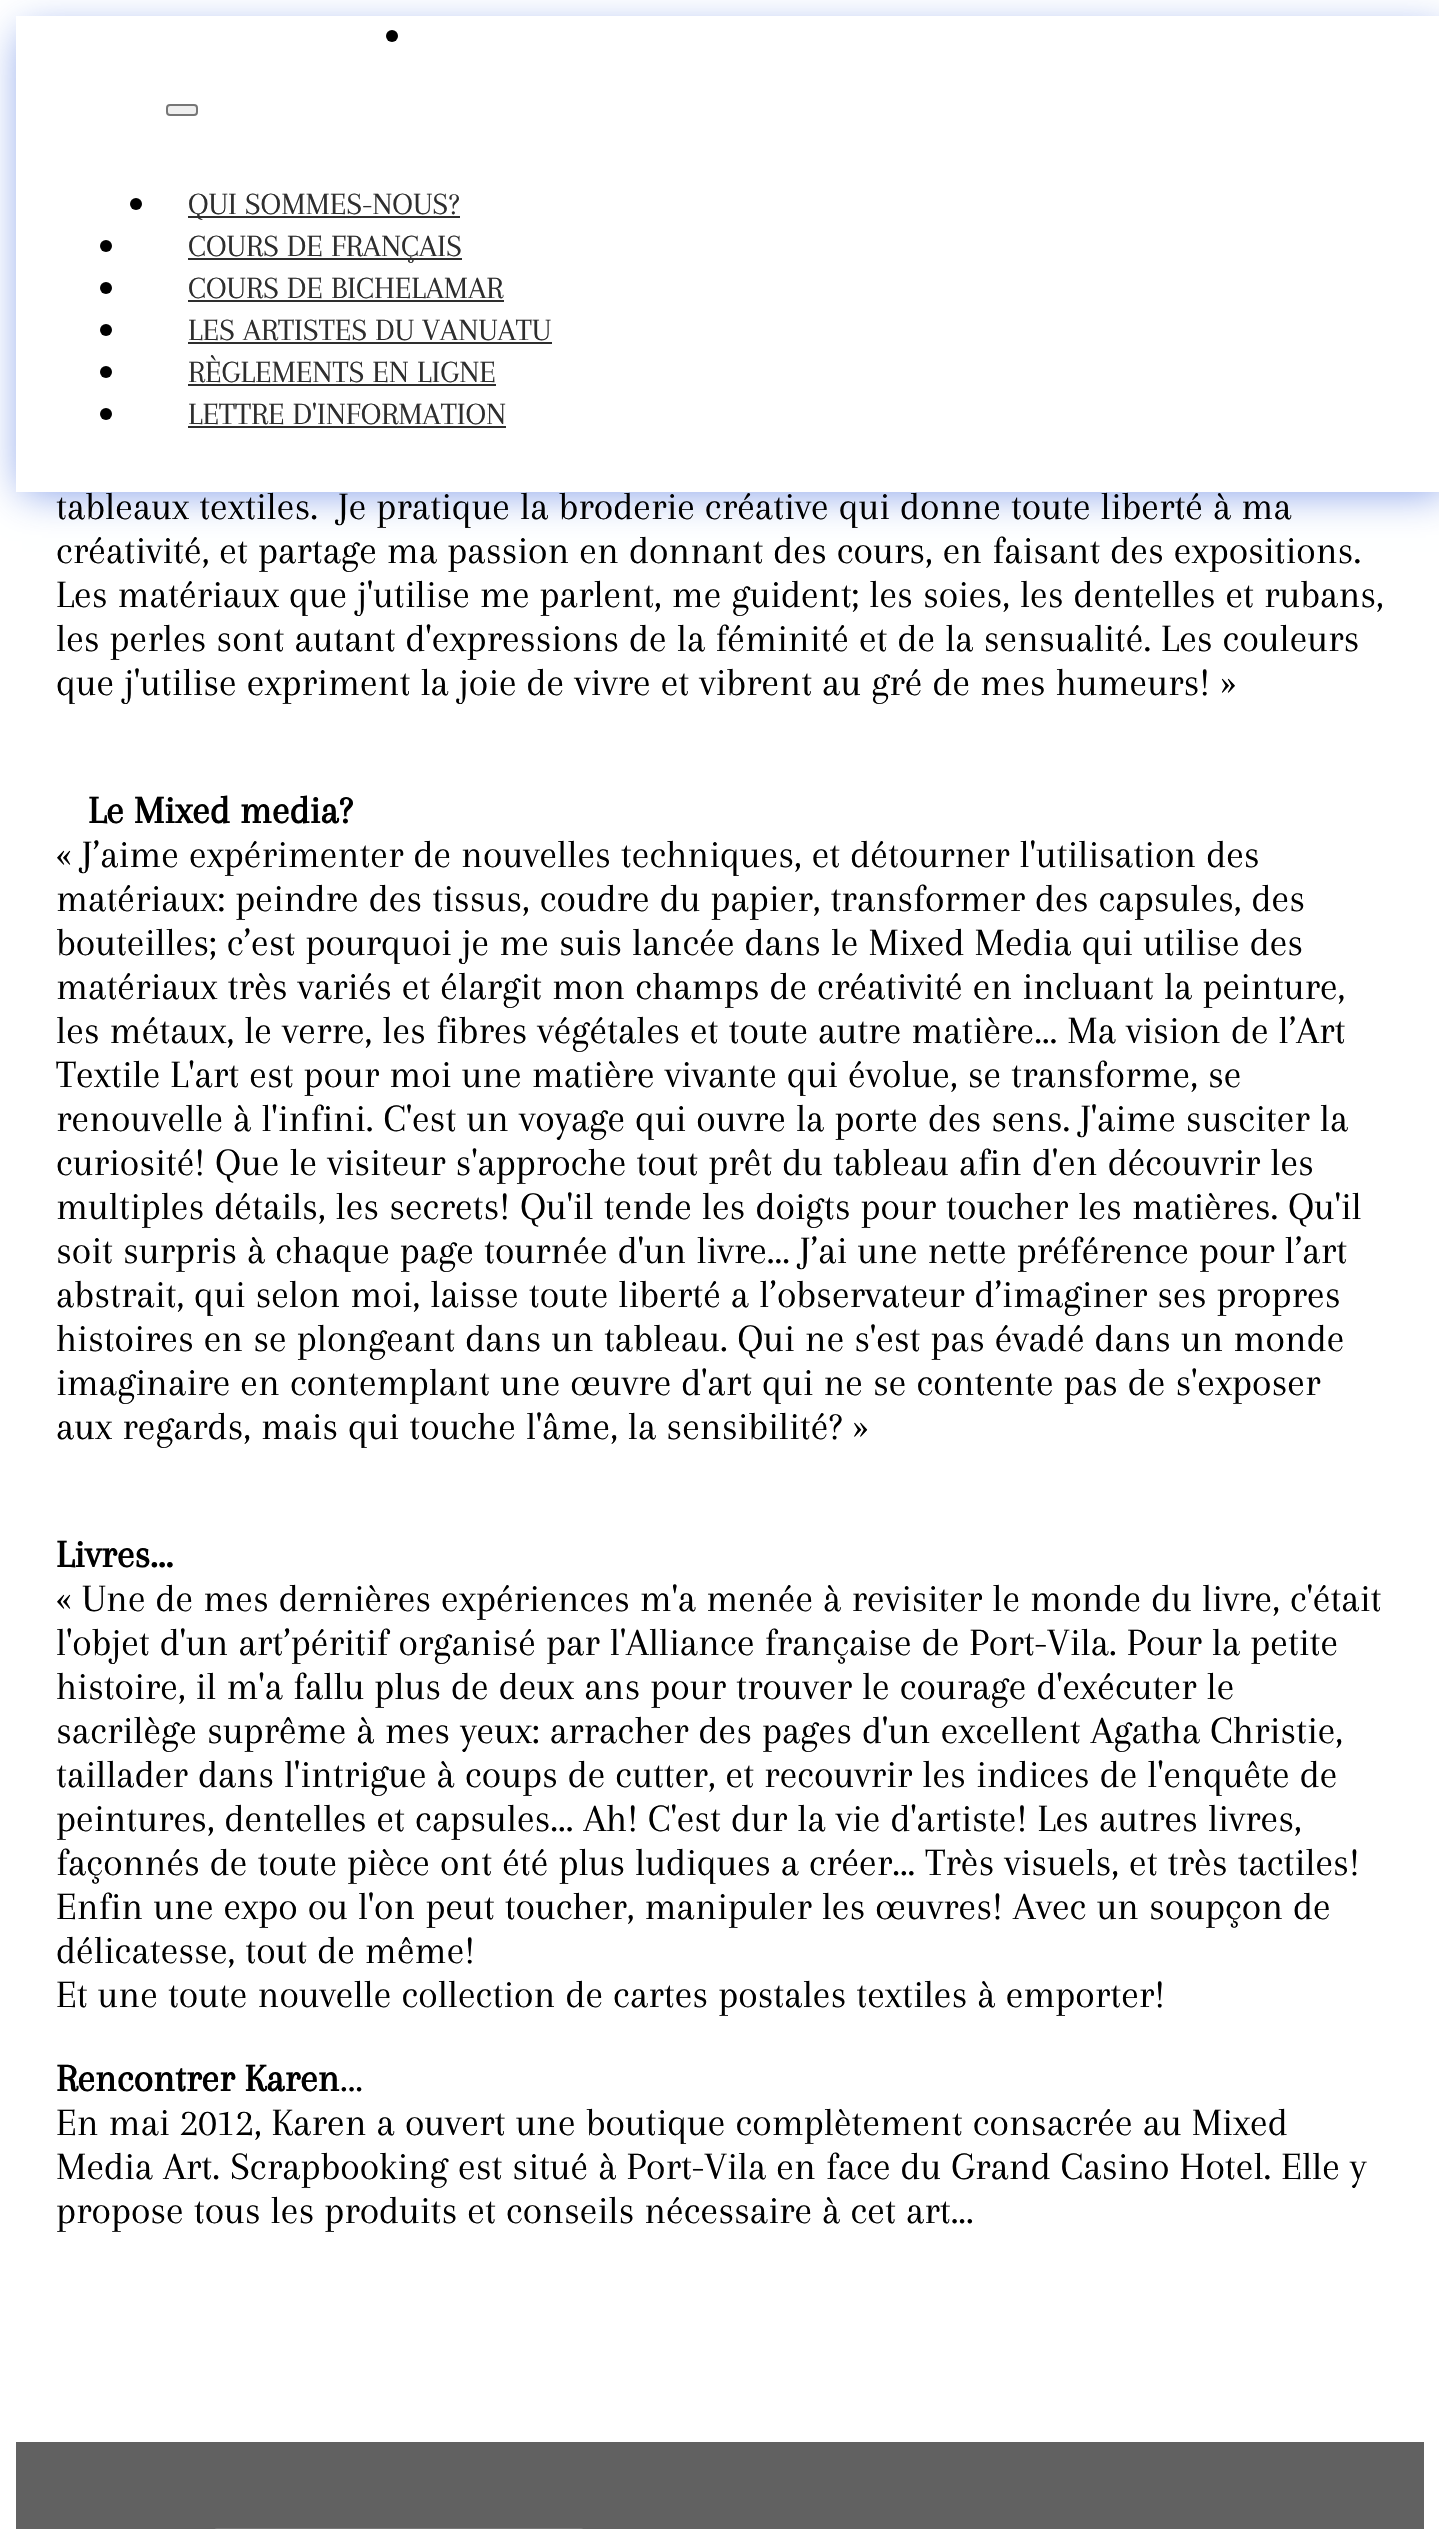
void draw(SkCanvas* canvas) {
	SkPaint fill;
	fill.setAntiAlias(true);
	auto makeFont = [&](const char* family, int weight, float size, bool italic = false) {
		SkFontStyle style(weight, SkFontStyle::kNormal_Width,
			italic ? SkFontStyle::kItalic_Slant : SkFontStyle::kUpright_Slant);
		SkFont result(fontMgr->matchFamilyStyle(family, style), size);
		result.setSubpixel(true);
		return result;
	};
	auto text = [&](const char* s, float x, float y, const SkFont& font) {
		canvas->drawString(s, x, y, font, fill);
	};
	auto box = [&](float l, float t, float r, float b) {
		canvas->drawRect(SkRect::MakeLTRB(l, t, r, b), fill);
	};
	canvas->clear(0xFFFFFFFF);
	fill.setColor(0x800036D2);
	fill.setMaskFilter(SkMaskFilter::MakeBlur(kNormal_SkBlurStyle, 20));
	canvas->drawRect(SkRect::MakeLTRB(22, 32, 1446, 492), fill);
	fill.setMaskFilter(nullptr);
	fill.setColor(0xFFFFFFFF);
	box(16, 16, 1439, 492);
	fill.setColor(0xFF000000);
	canvas->drawCircle(392, 36, 6, fill);
	fill.setColor(0xFFEFEFEF);
	canvas->drawRoundRect(SkRect::MakeLTRB(167, 105, 197, 115), 3, 3, fill);
	fill.setStyle(SkPaint::kStroke_Style);
	fill.setStrokeWidth(2);
	fill.setColor(0xFF767676);
	canvas->drawRoundRect(SkRect::MakeLTRB(167, 105, 197, 115), 3, 3, fill);
	fill.setStyle(SkPaint::kFill_Style);
	fill.setColor(0xFF000000);
	canvas->drawCircle(136, 204, 6, fill);
	fill.setColor(0xFF2E2E2E);
	box(188, 216, 460, 218);
	fill.setColor(0xFF000000);
	canvas->drawCircle(106, 246, 6, fill);
	fill.setColor(0xFF2E2E2E);
	box(188, 258, 462, 260);
	fill.setColor(0xFF000000);
	canvas->drawCircle(106, 288, 6, fill);
	fill.setColor(0xFF2E2E2E);
	box(188, 300, 504, 302);
	fill.setColor(0xFF000000);
	canvas->drawCircle(106, 330, 6, fill);
	fill.setColor(0xFF2E2E2E);
	box(188, 342, 552, 344);
	fill.setColor(0xFF000000);
	canvas->drawCircle(106, 372, 6, fill);
	fill.setColor(0xFF2E2E2E);
	box(188, 384, 496, 386);
	fill.setColor(0xFF000000);
	canvas->drawCircle(106, 414, 6, fill);
	fill.setColor(0xFF2E2E2E);
	box(188, 426, 506, 428);
	fill.setColor(0xFF616161);
	box(16, 2442, 1424, 2529);
	fill.setStyle(SkPaint::kStroke_Style);
	fill.setColor(0xFF767676);
	canvas->drawRoundRect(SkRect::MakeLTRB(215, 2529, 583, 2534), 3, 3, fill);
	auto font1 = makeFont("Arapey", 400, 32);
	fill.setStyle(SkPaint::kFill_Style);
	fill.setColor(0xFF2E2E2E);
	text("QUI SOMMES-NOUS?", 188, 214, font1);
	text("COURS DE FRANÇAIS", 188, 256, font1);
	text("COURS DE BICHELAMAR", 188, 298, font1);
	text("LES ARTISTES DU VANUATU", 188, 340, font1);
	text("RÈGLEMENTS EN LIGNE", 188, 382, font1);
	text("LETTRE D'INFORMATION", 188, 424, font1);
	auto font2 = makeFont("Arapey", 400, 40);
	fill.setColor(0xFF000000);
	text("tableaux textiles.  Je pratique la broderie créative qui donne toute liberté à ma", 56, 519, font2);
	text("créativité, et partage ma passion en donnant des cours, en faisant des expositions.", 56, 563, font2);
	text("Les matériaux que j'utilise me parlent, me guident; les soies, les dentelles et rubans,", 56, 607, font2);
	text("les perles sont autant d'expressions de la féminité et de la sensualité. Les couleurs", 56, 651, font2);
	text("que j'utilise expriment la joie de vivre et vibrent au gré de mes humeurs! »", 56, 695, font2);
	auto font3 = makeFont("Arapey", 700, 40);
	text("Le Mixed media?", 88, 823, font3);
	text("« J’aime expérimenter de nouvelles techniques, et détourner l'utilisation des", 56, 867, font2);
	text("matériaux: peindre des tissus, coudre du papier, transformer des capsules, des", 56, 911, font2);
	text("bouteilles; c’est pourquoi je me suis lancée dans le Mixed Media qui utilise des", 56, 955, font2);
	text("matériaux très variés et élargit mon champs de créativité en incluant la peinture,", 56, 999, font2);
	text("les métaux, le verre, les fibres végétales et toute autre matière… Ma vision de l’Art", 56, 1043, font2);
	text("Textile L'art est pour moi une matière vivante qui évolue, se transforme, se", 56, 1087, font2);
	text("renouvelle à l'infini. C'est un voyage qui ouvre la porte des sens. J'aime susciter la", 56, 1131, font2);
	text("curiosité! Que le visiteur s'approche tout prêt du tableau afin d'en découvrir les", 56, 1175, font2);
	text("multiples détails, les secrets! Qu'il tende les doigts pour toucher les matières. Qu'il", 56, 1219, font2);
	text("soit surpris à chaque page tournée d'un livre... J’ai une nette préférence pour l’art", 56, 1263, font2);
	text("abstrait, qui selon moi, laisse toute liberté a l’observateur d’imaginer ses propres", 56, 1307, font2);
	text("histoires en se plongeant dans un tableau. Qui ne s'est pas évadé dans un monde", 56, 1351, font2);
	text("imaginaire en contemplant une œuvre d'art qui ne se contente pas de s'exposer", 56, 1395, font2);
	text("aux regards, mais qui touche l'âme, la sensibilité? »", 56, 1439, font2);
	text("Livres...", 56, 1567, font3);
	text("« Une de mes dernières expériences m'a menée à revisiter le monde du livre, c'était", 56, 1611, font2);
	text("l'objet d'un art’péritif organisé par l'Alliance française de Port-Vila. Pour la petite", 56, 1655, font2);
	text("histoire, il m'a fallu plus de deux ans pour trouver le courage d'exécuter le", 56, 1699, font2);
	text("sacrilège suprême à mes yeux: arracher des pages d'un excellent Agatha Christie,", 56, 1743, font2);
	text("taillader dans l'intrigue à coups de cutter, et recouvrir les indices de l'enquête de", 56, 1787, font2);
	text("peintures, dentelles et capsules... Ah! C'est dur la vie d'artiste! Les autres livres,", 56, 1831, font2);
	text("façonnés de toute pièce ont été plus ludiques a créer... Très visuels, et très tactiles!", 56, 1875, font2);
	text("Enfin une expo ou l'on peut toucher, manipuler les œuvres! Avec un soupçon de", 56, 1919, font2);
	text("délicatesse, tout de même!", 56, 1963, font2);
	text("Et une toute nouvelle collection de cartes postales textiles à emporter!", 56, 2007, font2);
	text("Rencontrer Karen", 56, 2091, font3);
	text("...", 340, 2091, font2);
	text("En mai 2012, Karen a ouvert une boutique complètement consacrée au Mixed", 56, 2135, font2);
	text("Media Art. Scrapbooking est situé à Port-Vila en face du Grand Casino Hotel. Elle y", 56, 2179, font2);
	text("propose tous les produits et conseils nécessaire à cet art...", 56, 2223, font2);
}
